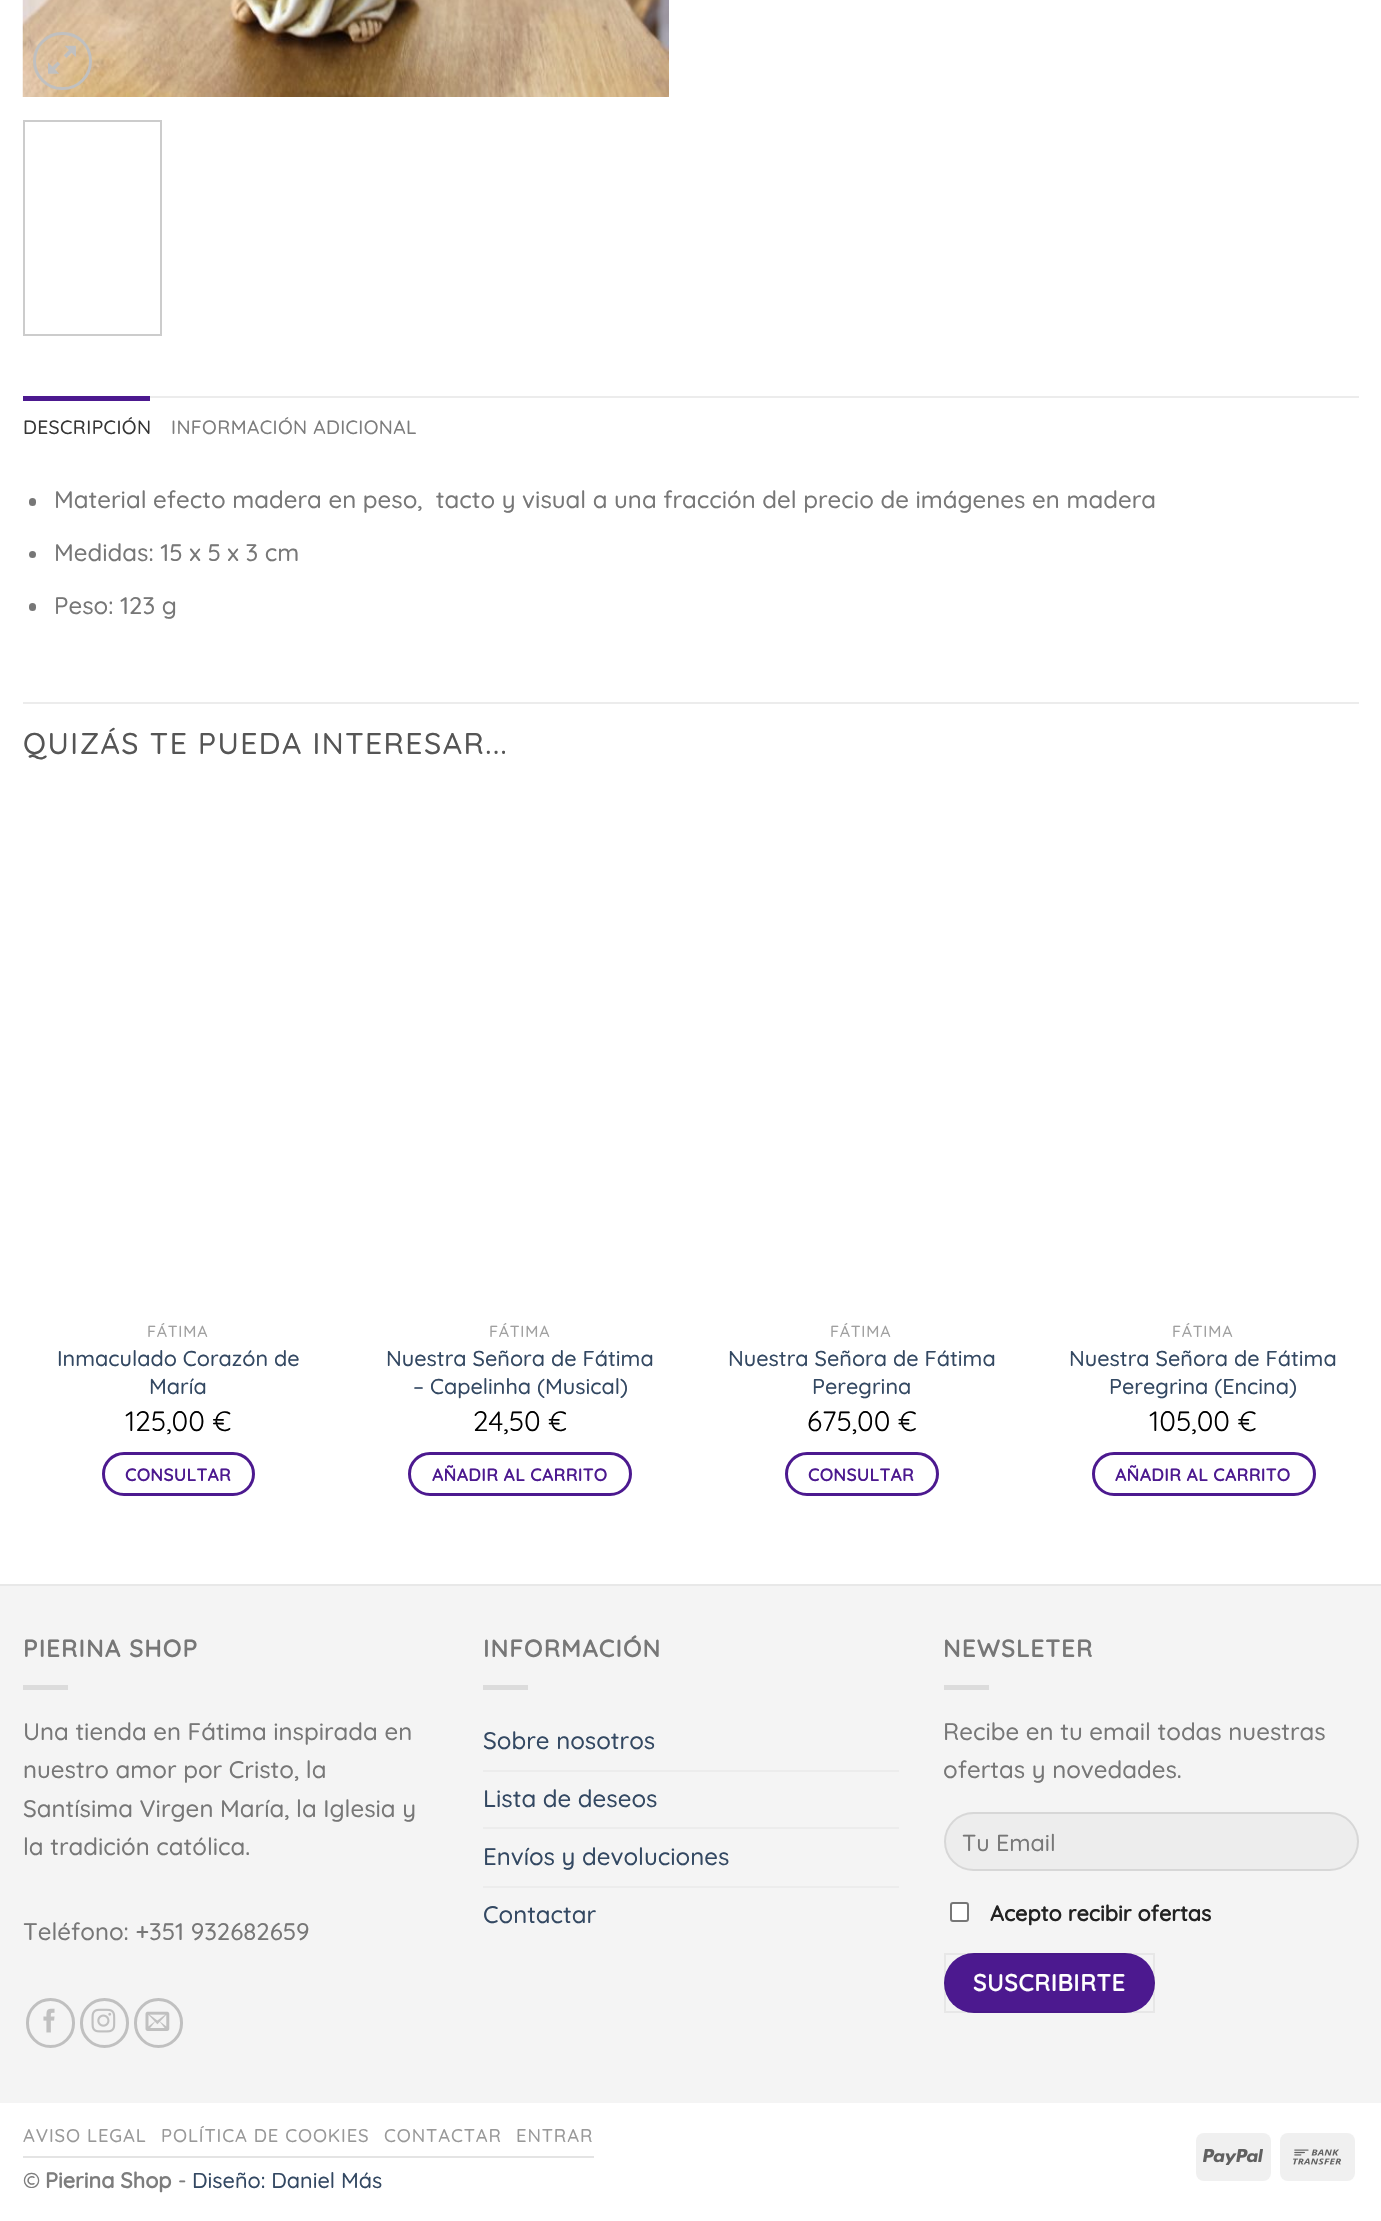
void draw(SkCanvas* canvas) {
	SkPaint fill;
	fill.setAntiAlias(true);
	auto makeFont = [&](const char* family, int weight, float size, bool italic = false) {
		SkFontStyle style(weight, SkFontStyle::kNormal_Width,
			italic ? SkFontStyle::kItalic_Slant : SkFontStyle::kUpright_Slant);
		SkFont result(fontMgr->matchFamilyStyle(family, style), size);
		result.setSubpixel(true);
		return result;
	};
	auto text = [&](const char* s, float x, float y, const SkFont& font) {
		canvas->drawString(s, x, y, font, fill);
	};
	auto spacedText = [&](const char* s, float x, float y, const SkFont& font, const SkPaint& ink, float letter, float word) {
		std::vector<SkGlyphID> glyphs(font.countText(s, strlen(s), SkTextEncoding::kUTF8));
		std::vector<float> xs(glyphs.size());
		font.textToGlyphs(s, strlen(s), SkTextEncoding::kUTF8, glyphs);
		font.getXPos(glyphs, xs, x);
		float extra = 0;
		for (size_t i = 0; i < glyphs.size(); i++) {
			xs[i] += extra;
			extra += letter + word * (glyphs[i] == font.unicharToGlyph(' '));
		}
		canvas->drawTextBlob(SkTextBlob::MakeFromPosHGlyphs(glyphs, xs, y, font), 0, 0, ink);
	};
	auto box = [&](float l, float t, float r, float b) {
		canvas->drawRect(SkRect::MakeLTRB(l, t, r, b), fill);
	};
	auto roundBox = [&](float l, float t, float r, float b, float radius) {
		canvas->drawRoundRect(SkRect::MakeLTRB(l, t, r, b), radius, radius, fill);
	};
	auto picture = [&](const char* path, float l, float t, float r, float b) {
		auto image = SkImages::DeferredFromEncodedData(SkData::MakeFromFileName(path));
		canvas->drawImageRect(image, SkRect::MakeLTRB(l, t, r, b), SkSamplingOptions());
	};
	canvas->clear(0xFFFFFFFF);
	picture("image0.png", 22, 0, 669, 97);
	fill.setStyle(SkPaint::kStroke_Style);
	fill.setStrokeWidth(3);
	fill.setColor(0xFFC0C0C0);
	canvas->drawRoundRect(SkRect::MakeLTRB(34.5f, 33.5f, 90.5f, 88.5f), 27.5f, 27.5f, fill);
	picture("image1.png", 48, 45, 76, 74);
	fill.setStrokeWidth(2);
	fill.setColor(0xFFCCCCCC);
	canvas->drawRect(SkRect::MakeLTRB(24, 121, 161, 335), fill);
	fill.setStyle(SkPaint::kFill_Style);
	fill.setColor(0xFFECECEC);
	box(150, 396, 1359, 398);
	fill.setColor(0xFF4C198F);
	box(23, 396, 150, 401);
	fill.setColor(0xFF777777);
	roundBox(29, 498, 36, 506, 3.5f);
	canvas->drawCircle(32.5f, 554.5f, 3.5f, fill);
	roundBox(29, 603, 36, 611, 3.5f);
	fill.setColor(0xFFECECEC);
	box(23, 702, 1359, 704);
	fill.setStyle(SkPaint::kStroke_Style);
	fill.setStrokeWidth(3);
	fill.setColor(0xFF4C198F);
	canvas->drawRoundRect(SkRect::MakeLTRB(103.5f, 1453.5f, 253.5f, 1494.5f), 20.5f, 20.5f, fill);
	canvas->drawRoundRect(SkRect::MakeLTRB(409.5f, 1453.5f, 630.5f, 1494.5f), 20.5f, 20.5f, fill);
	canvas->drawRoundRect(SkRect::MakeLTRB(786.5f, 1453.5f, 937.5f, 1494.5f), 20.5f, 20.5f, fill);
	canvas->drawRoundRect(SkRect::MakeLTRB(1093.5f, 1453.5f, 1314.5f, 1494.5f), 20.5f, 20.5f, fill);
	fill.setStyle(SkPaint::kFill_Style);
	fill.setColor(0xFFF4F4F4);
	box(0, 1586, 1381, 2103);
	fill.setColor(0xFFE8E8E8);
	box(0, 1584, 1381, 1586);
	fill.setColor(0xFFDCDCDC);
	box(23, 1685, 68, 1690);
	fill.setStyle(SkPaint::kStroke_Style);
	fill.setColor(0xFFC0C0C0);
	canvas->drawRoundRect(SkRect::MakeLTRB(27.5f, 1999.5f, 73.5f, 2046.5f), 23, 23, fill);
	picture("image2.png", 43, 2008, 55, 2033);
	canvas->drawRoundRect(SkRect::MakeLTRB(81.5f, 1999.5f, 127.5f, 2046.5f), 23, 23, fill);
	picture("image3.png", 91, 2008, 116, 2033);
	canvas->drawRoundRect(SkRect::MakeLTRB(135.5f, 1999.5f, 181.5f, 2046.5f), 23, 23, fill);
	picture("image4.png", 145, 2011, 170, 2031);
	fill.setStyle(SkPaint::kFill_Style);
	fill.setColor(0xFFDCDCDC);
	box(483, 1685, 528, 1690);
	fill.setColor(0xFFECECEC);
	box(483, 1770, 899, 1772);
	box(483, 1827, 899, 1829);
	box(483, 1886, 899, 1888);
	fill.setColor(0xFFDCDCDC);
	box(944, 1685, 989, 1690);
	fill.setColor(0xFFEDEDED);
	roundBox(944, 1812, 1359, 1871, 29.5f);
	fill.setStyle(SkPaint::kStroke_Style);
	fill.setStrokeWidth(2);
	fill.setColor(0x17000000);
	canvas->drawRoundRect(SkRect::MakeLTRB(945, 1813, 1358, 1870), 28.5f, 28.5f, fill);
	fill.setStyle(SkPaint::kFill_Style);
	fill.setColor(0xFFFFFFFF);
	canvas->drawRoundRect(SkRect::MakeLTRB(951, 1903, 968, 1921), 2, 2, fill);
	fill.setStyle(SkPaint::kStroke_Style);
	fill.setColor(0xFF767676);
	canvas->drawRoundRect(SkRect::MakeLTRB(951, 1903, 968, 1921), 2, 2, fill);
	fill.setStyle(SkPaint::kFill_Style);
	fill.setColor(0xFF4C198F);
	roundBox(944, 1953, 1155, 2013, 30);
	fill.setStyle(SkPaint::kStroke_Style);
	fill.setColor(0x0D000000);
	canvas->drawRect(SkRect::MakeLTRB(945, 1954, 1154, 2012), fill);
	fill.setStyle(SkPaint::kFill_Style);
	fill.setColor(0xFFE4E4E4);
	box(23, 2156, 594, 2158);
	fill.setColor(0xFFF0F0F0);
	roundBox(1196, 2133, 1271, 2181, 8);
	picture("image5.png", 1203, 2149, 1263, 2165);
	roundBox(1280, 2133, 1355, 2181, 8);
	picture("image6.png", 1293, 2149, 1341, 2165);
	auto font1 = makeFont("Quicksand", 500, 19.25f);
	fill.setColor(0xFF363636);
	spacedText("DESCRIPCIÓN", 23, 434, font1, fill, 0.4f, 0);
	fill.setColor(0xFF7D7D7D);
	spacedText("INFORMACIÓN ADICIONAL", 171, 434, font1, fill, 0.4f, 0);
	auto font2 = makeFont("Quicksand", 500, 24);
	fill.setColor(0xFF777777);
	text("Material efecto madera en peso,  tacto y visual a una fracción del precio de imágenes en madera", 54, 508, font2);
	text("Medidas: 15 x 5 x 3 cm", 54, 561, font2);
	text("Peso: 123 g", 54, 614, font2);
	auto font3 = makeFont("Quicksand", 500, 30);
	fill.setColor(0xFF555555);
	spacedText("QUIZÁS TE PUEDA INTERESAR...", 23, 754, font3, fill, 1.5f, 0);
	auto font4 = makeFont("Quicksand", 500, 16);
	fill.setColor(0xFFA0A0A0);
	spacedText("FÁTIMA", 147, 1337, font4, fill, 0.75f, 0);
	auto font5 = makeFont("Quicksand", 500, 21.6f);
	fill.setColor(0xFF334862);
	text("Inmaculado Corazón de", 57, 1366, font5);
	text("María", 149, 1394, font5);
	auto font6 = makeFont("Quicksand", 400, 28);
	fill.setColor(0xFF000000);
	text("125,00 €", 125, 1431, font6);
	auto font7 = makeFont("Quicksand", 700, 17.25f);
	fill.setColor(0xFF4C198F);
	spacedText("CONSULTAR", 125, 1481, font7, fill, 0.5f, 0);
	fill.setColor(0xFFA0A0A0);
	spacedText("FÁTIMA", 489, 1337, font4, fill, 0.75f, 0);
	fill.setColor(0xFF334862);
	text("Nuestra Señora de Fátima", 386, 1366, font5);
	text("– Capelinha (Musical)", 413, 1394, font5);
	fill.setColor(0xFF000000);
	text("24,50 €", 473, 1431, font6);
	fill.setColor(0xFF4C198F);
	spacedText("AÑADIR AL CARRITO", 432, 1481, font7, fill, 0.5f, 0);
	fill.setColor(0xFFA0A0A0);
	spacedText("FÁTIMA", 830, 1337, font4, fill, 0.75f, 0);
	fill.setColor(0xFF334862);
	text("Nuestra Señora de Fátima", 728, 1366, font5);
	text("Peregrina", 812, 1394, font5);
	fill.setColor(0xFF000000);
	text("675,00 €", 807, 1431, font6);
	fill.setColor(0xFF4C198F);
	spacedText("CONSULTAR", 808, 1481, font7, fill, 0.5f, 0);
	fill.setColor(0xFFA0A0A0);
	spacedText("FÁTIMA", 1172, 1337, font4, fill, 0.75f, 0);
	fill.setColor(0xFF334862);
	text("Nuestra Señora de Fátima", 1069, 1366, font5);
	text("Peregrina (Encina)", 1109, 1394, font5);
	fill.setColor(0xFF000000);
	text("105,00 €", 1149, 1431, font6);
	fill.setColor(0xFF4C198F);
	spacedText("AÑADIR AL CARRITO", 1115, 1481, font7, fill, 0.5f, 0);
	auto font8 = makeFont("Quicksand", 700, 24);
	fill.setColor(0xFF777777);
	spacedText("PIERINA SHOP", 23, 1657, font8, fill, 1.25f, 0);
	text("Una tienda en Fátima inspirada en", 23, 1740, font2);
	text("nuestro amor por Cristo, la", 23, 1778, font2);
	text("Santísima Virgen María, la Iglesia y", 23, 1817, font2);
	text("la tradición católica.", 23, 1855, font2);
	text("Teléfono: +351 932682659", 23, 1940, font2);
	spacedText("INFORMACIÓN", 483, 1657, font8, fill, 1.25f, 0);
	fill.setColor(0xFF334862);
	text("Sobre nosotros", 483, 1749, font2);
	text("Lista de deseos", 483, 1807, font2);
	text("Envíos y devoluciones", 483, 1865, font2);
	text("Contactar", 483, 1923, font2);
	fill.setColor(0xFF777777);
	spacedText("NEWSLETER", 943, 1657, font8, fill, 1.25f, 0);
	text("Recibe en tu email todas nuestras", 943, 1740, font2);
	text("ofertas y novedades.", 943, 1778, font2);
	auto font9 = makeFont("Quicksand", 500, 23.25f);
	text("Tu Email", 962, 1851, font9);
	auto font10 = makeFont("Quicksand", 700, 21.6f);
	fill.setColor(0xFF222222);
	text("Acepto recibir ofertas", 990, 1921, font10);
	auto font11 = makeFont("Quicksand", 700, 23.25f);
	fill.setColor(0xFFFFFFFF);
	spacedText("SUSCRIBIRTE", 973, 1991, font11, fill, 0.75f, 0);
	auto font12 = makeFont("Quicksand", 500, 18.4f);
	fill.setColor(0xFF999999);
	spacedText("AVISO LEGAL", 23, 2142, font12, fill, 0.9f, 0);
	spacedText("POLÍTICA DE COOKIES", 161, 2142, font12, fill, 0.9f, 0);
	spacedText("CONTACTAR", 384, 2142, font12, fill, 0.9f, 0);
	spacedText("ENTRAR", 516, 2142, font12, fill, 0.9f, 0);
	fill.setColor(0xFF7D7D7D);
	text("©", 23, 2188, font5);
	text("Pierina Shop", 45, 2188, font10);
	text("-", 178, 2188, font5);
	fill.setColor(0xFF334862);
	text("Diseño: Daniel Más", 192, 2188, font5);
}
